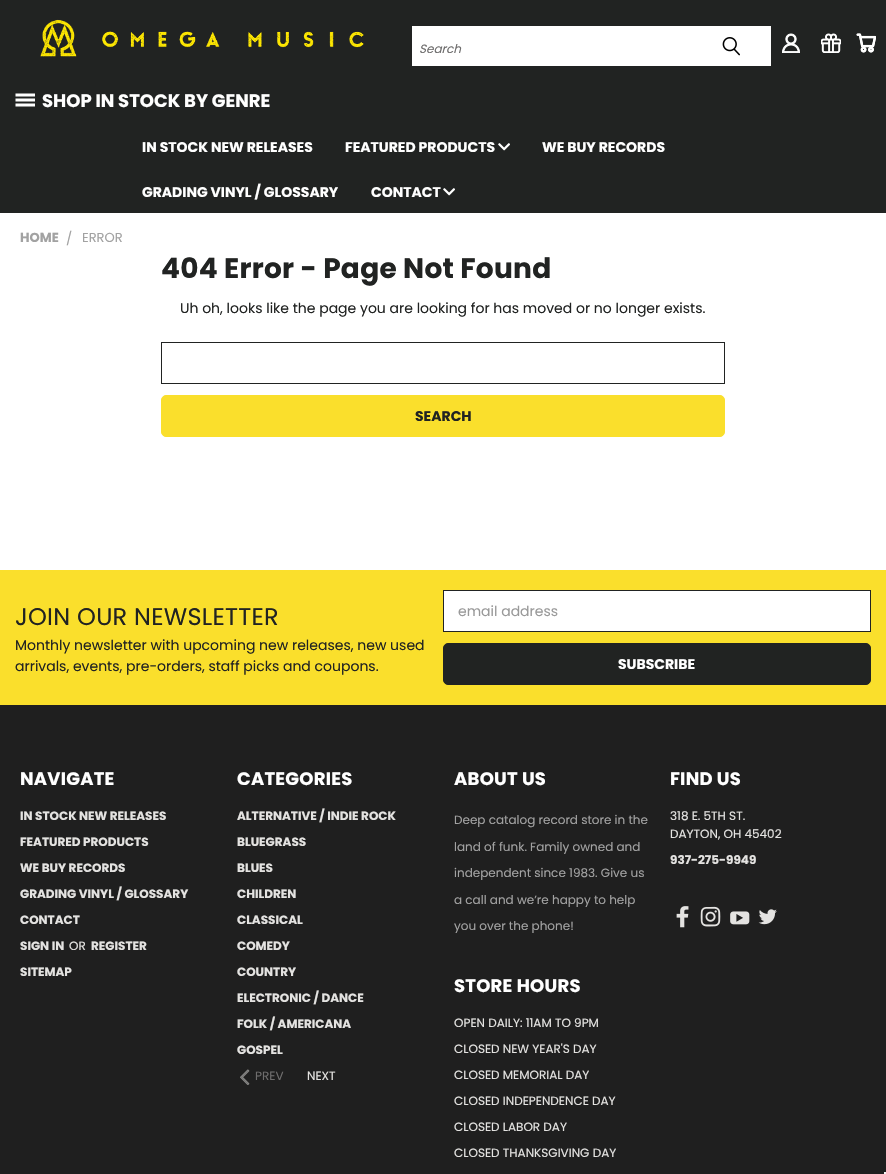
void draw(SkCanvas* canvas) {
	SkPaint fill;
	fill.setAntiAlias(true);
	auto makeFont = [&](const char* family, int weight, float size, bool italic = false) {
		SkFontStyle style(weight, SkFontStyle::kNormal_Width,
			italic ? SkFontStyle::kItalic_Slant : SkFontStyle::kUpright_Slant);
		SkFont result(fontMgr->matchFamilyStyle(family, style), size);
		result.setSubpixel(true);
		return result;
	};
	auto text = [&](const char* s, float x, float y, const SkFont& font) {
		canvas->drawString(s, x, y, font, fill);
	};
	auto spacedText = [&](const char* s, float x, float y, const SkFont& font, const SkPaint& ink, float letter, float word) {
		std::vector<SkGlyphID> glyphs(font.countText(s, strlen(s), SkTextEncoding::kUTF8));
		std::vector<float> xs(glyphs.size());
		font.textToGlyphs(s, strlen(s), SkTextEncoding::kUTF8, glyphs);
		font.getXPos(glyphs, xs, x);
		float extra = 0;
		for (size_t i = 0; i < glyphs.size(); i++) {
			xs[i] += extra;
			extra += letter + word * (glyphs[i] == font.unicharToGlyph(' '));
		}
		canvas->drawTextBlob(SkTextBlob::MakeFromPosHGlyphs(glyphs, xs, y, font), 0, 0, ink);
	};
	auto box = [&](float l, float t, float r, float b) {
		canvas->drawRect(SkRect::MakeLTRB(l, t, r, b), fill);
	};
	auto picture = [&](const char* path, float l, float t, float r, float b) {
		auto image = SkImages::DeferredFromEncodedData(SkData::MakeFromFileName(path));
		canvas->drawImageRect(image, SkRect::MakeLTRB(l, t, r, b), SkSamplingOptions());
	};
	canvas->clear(0xFFFFFFFF);
	fill.setColor(0xFF212322);
	box(0, 0, 886, 213);
	picture("image0.png", 40, 19, 364, 57);
	fill.setColor(0xFFFFFFFF);
	box(412, 26, 771, 66);
	picture("image1.png", 722, 37, 740, 56);
	picture("image2.png", 782, 33, 800, 53);
	picture("image3.png", 821, 33, 841, 53);
	picture("image4.png", 856, 33, 876, 53);
	picture("image5.png", 15, 93, 35, 107);
	picture("image6.png", 498, 143, 510, 151);
	picture("image6.png", 443, 188, 455, 196);
	fill.setStyle(SkPaint::kStroke_Style);
	fill.setStrokeWidth(1);
	fill.setColor(0xFF212322);
	canvas->drawRect(SkRect::MakeLTRB(161.5f, 342.5f, 724.5f, 383.5f), fill);
	fill.setStyle(SkPaint::kFill_Style);
	fill.setColor(0xFFFADF2C);
	canvas->drawRoundRect(SkRect::MakeLTRB(161.5f, 395.5f, 724.5f, 436.5f), 4.5f, 4.5f, fill);
	fill.setStyle(SkPaint::kStroke_Style);
	canvas->drawRoundRect(SkRect::MakeLTRB(161.5f, 395.5f, 724.5f, 436.5f), 4.5f, 4.5f, fill);
	fill.setStyle(SkPaint::kFill_Style);
	box(0, 570, 886, 705);
	fill.setColor(0xFFFFFFFF);
	canvas->drawRect(SkRect::MakeLTRB(443.5f, 590.5f, 870.5f, 631.5f), fill);
	fill.setStyle(SkPaint::kStroke_Style);
	fill.setColor(0xFF212322);
	canvas->drawRect(SkRect::MakeLTRB(443.5f, 590.5f, 870.5f, 631.5f), fill);
	fill.setStyle(SkPaint::kFill_Style);
	canvas->drawRoundRect(SkRect::MakeLTRB(443.5f, 643.5f, 870.5f, 684.5f), 4.5f, 4.5f, fill);
	fill.setStyle(SkPaint::kStroke_Style);
	canvas->drawRoundRect(SkRect::MakeLTRB(443.5f, 643.5f, 870.5f, 684.5f), 4.5f, 4.5f, fill);
	fill.setStyle(SkPaint::kFill_Style);
	fill.setColor(0xFF1F1F1F);
	box(0, 705, 886, 1174);
	picture("image7.png", 240, 1069, 250, 1085);
	picture("image8.png", 676, 906, 689, 928);
	picture("image9.png", 700, 906, 721, 927);
	picture("image10.png", 730, 911, 750, 925);
	picture("image11.png", 758, 909, 777, 925);
	fill.setColor(0xFFF5F5F5);
	box(884, 1172, 886, 1174);
	auto font1 = makeFont("Poppins", 400, 12, true);
	fill.setColor(0xFF6E6D6D);
	text("Search", 419, 53, font1);
	auto font2 = makeFont("Poppins", 700, 18);
	fill.setColor(0xFFFFFFFF);
	text("SHOP IN STOCK BY GENRE", 42, 107, font2);
	auto font3 = makeFont("Poppins", 700, 14);
	text("IN STOCK NEW RELEASES", 142, 152, font3);
	text("FEATURED PRODUCTS", 345, 152, font3);
	text("WE BUY RECORDS", 542, 152, font3);
	text("GRADING VINYL / GLOSSARY", 142, 197, font3);
	text("CONTACT", 371, 197, font3);
	auto font4 = makeFont("Poppins", 700, 13);
	fill.setColor(0xFFA2A2A2);
	text("HOME", 20, 242, font4);
	auto font5 = makeFont("Poppins", 400, 13);
	text("/", 66, 243, font5);
	text("ERROR", 82, 242, font5);
	auto font6 = makeFont("Poppins", 700, 28);
	fill.setColor(0xFF212322);
	spacedText("404 Error - Page Not Found", 161, 278, font6, fill, 0.25f, 0);
	auto font7 = makeFont("Poppins", 400, 14);
	text("Uh oh, looks like the page you are looking for has moved or no longer exists.", 180, 313, font7);
	text("SEARCH", 415, 421, font3);
	auto font8 = makeFont("Poppins", 400, 24);
	spacedText("JOIN OUR NEWSLETTER", 15, 625, font8, fill, 0.25f, 0);
	text("Monthly newsletter with upcoming new releases, new used", 15, 650, font7);
	text("arrivals, events, pre-orders, staff picks and coupons.", 15, 671, font7);
	fill.setColor(0xFF999999);
	text("email address", 458, 616, font7);
	fill.setColor(0xFFFFFFFF);
	text("SUBSCRIBE", 618, 669, font3);
	spacedText("NAVIGATE", 20, 785, font2, fill, 0.25f, 0);
	auto font9 = makeFont("Poppins", 700, 12);
	fill.setColor(0xFFE4E3E1);
	text("IN STOCK NEW RELEASES", 20, 820, font9);
	text("FEATURED PRODUCTS", 20, 846, font9);
	text("WE BUY RECORDS", 20, 872, font9);
	text("GRADING VINYL / GLOSSARY", 20, 898, font9);
	text("CONTACT", 20, 924, font9);
	text("SIGN IN", 20, 950, font9);
	auto font10 = makeFont("Poppins", 400, 12);
	text("OR", 69, 950, font10);
	text("REGISTER", 91, 950, font9);
	text("SITEMAP", 20, 976, font9);
	fill.setColor(0xFFFFFFFF);
	spacedText("CATEGORIES", 237, 785, font2, fill, 0.25f, 0);
	fill.setColor(0xFFE4E3E1);
	text("ALTERNATIVE / INDIE ROCK", 237, 820, font9);
	text("BLUEGRASS", 237, 846, font9);
	text("BLUES", 237, 872, font9);
	text("CHILDREN", 237, 898, font9);
	text("CLASSICAL", 237, 924, font9);
	text("COMEDY", 237, 950, font9);
	text("COUNTRY", 237, 976, font9);
	text("ELECTRONIC / DANCE", 237, 1002, font9);
	text("FOLK / AMERICANA", 237, 1028, font9);
	text("GOSPEL", 237, 1054, font9);
	fill.setColor(0xFF6E6D6D);
	text("PREV", 255, 1080, font10);
	fill.setColor(0xFFE4E3E1);
	text("NEXT", 307, 1080, font10);
	fill.setColor(0xFFFFFFFF);
	spacedText("ABOUT US", 454, 785, font2, fill, 0.25f, 0);
	fill.setColor(0xFFA2A2A2);
	text("Deep catalog record store in the", 454, 824, font10);
	text("land of funk. Family owned and", 454, 851, font10);
	text("independent since 1983. Give us", 454, 877, font10);
	text("a call and we’re happy to help", 454, 904, font10);
	text("you over the phone!", 454, 930, font10);
	fill.setColor(0xFFFFFFFF);
	spacedText("STORE HOURS", 454, 992, font2, fill, 0.25f, 0);
	fill.setColor(0xFFE4E3E1);
	text("OPEN DAILY: 11AM TO 9PM", 454, 1027, font10);
	text("CLOSED NEW YEAR'S DAY", 454, 1053, font10);
	text("CLOSED MEMORIAL DAY", 454, 1079, font10);
	text("CLOSED INDEPENDENCE DAY", 454, 1105, font10);
	text("CLOSED LABOR DAY", 454, 1131, font10);
	text("CLOSED THANKSGIVING DAY", 454, 1157, font10);
	fill.setColor(0xFFFFFFFF);
	spacedText("FIND US", 670, 785, font2, fill, 0.25f, 0);
	fill.setColor(0xFFE4E3E1);
	text("318 E. 5TH ST.", 670, 820, font10);
	text("DAYTON, OH 45402", 670, 838, font10);
	text("937-275-9949", 670, 864, font9);
}
